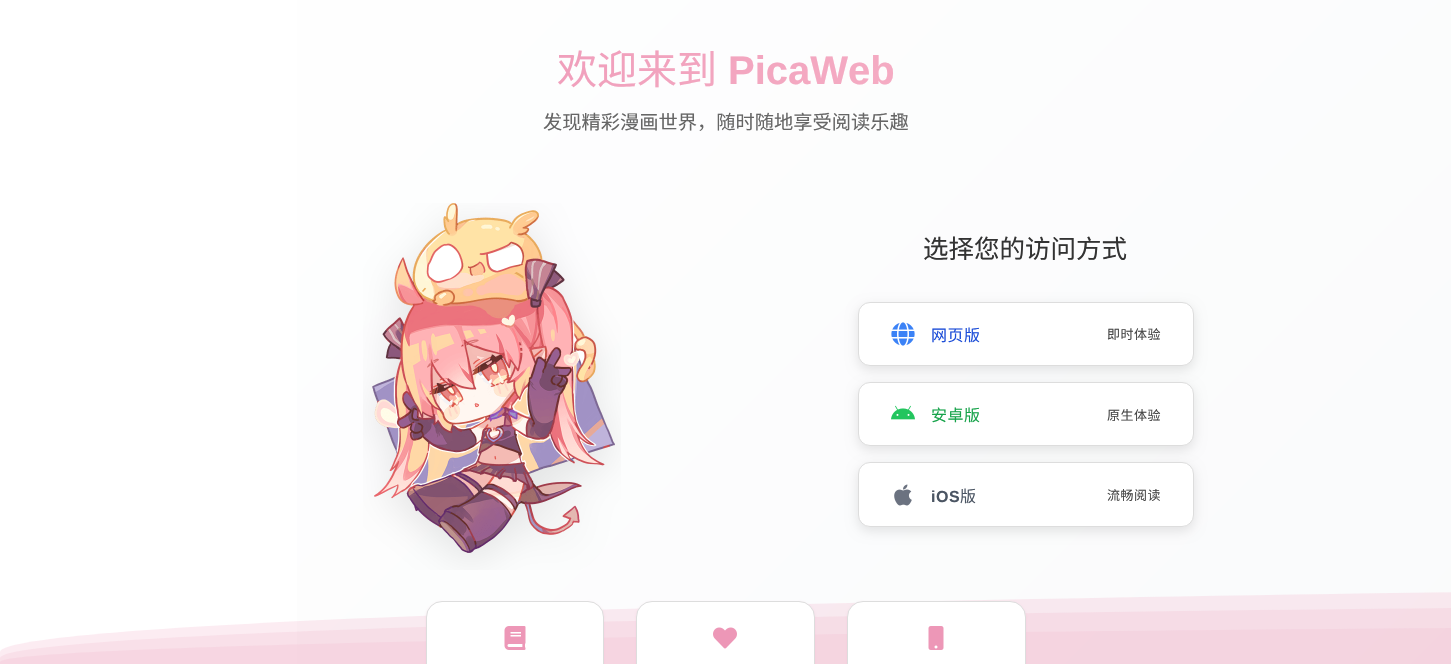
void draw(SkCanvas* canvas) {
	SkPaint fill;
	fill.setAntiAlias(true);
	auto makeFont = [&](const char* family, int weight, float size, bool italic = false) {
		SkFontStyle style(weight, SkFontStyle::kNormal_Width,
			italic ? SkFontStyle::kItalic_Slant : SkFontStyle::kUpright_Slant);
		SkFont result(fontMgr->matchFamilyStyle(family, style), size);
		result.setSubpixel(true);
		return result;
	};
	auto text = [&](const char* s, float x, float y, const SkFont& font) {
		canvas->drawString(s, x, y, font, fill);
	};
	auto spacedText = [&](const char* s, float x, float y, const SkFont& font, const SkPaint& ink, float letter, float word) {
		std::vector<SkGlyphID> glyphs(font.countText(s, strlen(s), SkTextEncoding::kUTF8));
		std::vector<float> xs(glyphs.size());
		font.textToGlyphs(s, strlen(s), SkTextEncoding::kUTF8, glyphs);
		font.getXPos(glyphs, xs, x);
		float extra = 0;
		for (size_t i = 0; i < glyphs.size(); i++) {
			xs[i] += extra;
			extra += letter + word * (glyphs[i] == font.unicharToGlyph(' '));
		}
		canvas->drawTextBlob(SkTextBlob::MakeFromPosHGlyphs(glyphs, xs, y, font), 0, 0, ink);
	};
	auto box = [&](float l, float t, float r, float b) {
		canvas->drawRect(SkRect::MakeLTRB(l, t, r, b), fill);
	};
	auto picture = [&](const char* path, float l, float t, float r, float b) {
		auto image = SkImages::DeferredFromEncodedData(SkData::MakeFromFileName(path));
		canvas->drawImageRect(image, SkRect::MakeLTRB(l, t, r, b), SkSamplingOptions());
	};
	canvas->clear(0xFFFFFFFF);
	{
		const SkColor colors[] = {0xFFFFFFFF, 0xFFF9FAFB};
		const float stops[] = {0, 1};
		const SkPoint ends[] = {{149, -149}, {1302, 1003}};
		fill.setShader(SkGradientShader::MakeLinear(ends, colors, stops, 2, SkTileMode::kClamp));
		fill.setAlpha(255);
	}
	box(297, 0, 1451, 664);
	picture("image0.png", 363, 203, 621, 570);
	fill.setShader(nullptr);
	fill.setColor(0x1A000000);
	fill.setMaskFilter(SkMaskFilter::MakeBlur(kNormal_SkBlurStyle, 6));
	canvas->drawRoundRect(SkRect::MakeLTRB(858, 306, 1194, 370), 12, 12, fill);
	fill.setMaskFilter(nullptr);
	fill.setColor(0xFFFFFFFF);
	canvas->drawRoundRect(SkRect::MakeLTRB(858.5f, 302.5f, 1193.5f, 365.5f), 11.5f, 11.5f, fill);
	fill.setStyle(SkPaint::kStroke_Style);
	fill.setStrokeWidth(1);
	fill.setColor(0xFFDDDDDD);
	canvas->drawRoundRect(SkRect::MakeLTRB(858.5f, 302.5f, 1193.5f, 365.5f), 11.5f, 11.5f, fill);
	picture("image1.png", 891, 322, 915, 346);
	fill.setStyle(SkPaint::kFill_Style);
	fill.setColor(0x1A000000);
	fill.setMaskFilter(SkMaskFilter::MakeBlur(kNormal_SkBlurStyle, 6));
	canvas->drawRoundRect(SkRect::MakeLTRB(858, 386, 1194, 450), 12, 12, fill);
	fill.setMaskFilter(nullptr);
	fill.setColor(0xFFFFFFFF);
	canvas->drawRoundRect(SkRect::MakeLTRB(858.5f, 382.5f, 1193.5f, 445.5f), 11.5f, 11.5f, fill);
	fill.setStyle(SkPaint::kStroke_Style);
	fill.setColor(0xFFDDDDDD);
	canvas->drawRoundRect(SkRect::MakeLTRB(858.5f, 382.5f, 1193.5f, 445.5f), 11.5f, 11.5f, fill);
	picture("image2.png", 891, 405, 915, 420);
	fill.setStyle(SkPaint::kFill_Style);
	fill.setColor(0x1A000000);
	fill.setMaskFilter(SkMaskFilter::MakeBlur(kNormal_SkBlurStyle, 6));
	canvas->drawRoundRect(SkRect::MakeLTRB(858, 466, 1194, 531), 12, 12, fill);
	fill.setMaskFilter(nullptr);
	fill.setColor(0xFFFFFFFF);
	canvas->drawRoundRect(SkRect::MakeLTRB(858.5f, 462.5f, 1193.5f, 526.5f), 11.5f, 11.5f, fill);
	fill.setStyle(SkPaint::kStroke_Style);
	fill.setColor(0xFFDDDDDD);
	canvas->drawRoundRect(SkRect::MakeLTRB(858.5f, 462.5f, 1193.5f, 526.5f), 11.5f, 11.5f, fill);
	picture("image3.png", 894, 484, 912, 506);
	fill.setStyle(SkPaint::kFill_Style);
	fill.setColor(0x1FED97B7);
	canvas->drawPath(SkPathBuilder().moveTo(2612, 624).cubicTo(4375, 624, 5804, 641, 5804, 662).lineTo(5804, 664).lineTo(0, 664).lineTo(0, 662).cubicTo(0, 641, 1169, 624, 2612, 624).close().detach(), fill);
	fill.setColor(0x2EED97B7);
	canvas->drawPath(SkPathBuilder().moveTo(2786, 584).cubicTo(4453, 584, 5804, 614, 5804, 652).lineTo(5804, 664).lineTo(0, 664).lineTo(0, 652).cubicTo(0, 614, 1247, 584, 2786, 584).close().detach(), fill);
	fill.setColor(0x26ED97B7);
	canvas->drawPath(SkPathBuilder().moveTo(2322, 604).lineTo(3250, 604).cubicTo(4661, 604, 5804, 628, 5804, 658).lineTo(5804, 664).lineTo(0, 664).lineTo(0, 658).cubicTo(0, 628, 1039, 604, 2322, 604).close().detach(), fill);
	fill.setColor(0x33ED97B7);
	fill.setMaskFilter(SkMaskFilter::MakeBlur(kNormal_SkBlurStyle, 1.5f));
	canvas->drawRoundRect(SkRect::MakeLTRB(426, 602, 604, 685), 16, 16, fill);
	fill.setMaskFilter(nullptr);
	fill.setColor(0xFFFFFFFF);
	canvas->drawRoundRect(SkRect::MakeLTRB(426.5f, 601.5f, 603.5f, 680.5f), 15.5f, 15.5f, fill);
	fill.setStyle(SkPaint::kStroke_Style);
	fill.setColor(0xFFDDDDDD);
	canvas->drawRoundRect(SkRect::MakeLTRB(426.5f, 601.5f, 603.5f, 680.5f), 15.5f, 15.5f, fill);
	picture("image4.png", 504, 626, 526, 650);
	fill.setStyle(SkPaint::kFill_Style);
	fill.setColor(0x33ED97B7);
	fill.setMaskFilter(SkMaskFilter::MakeBlur(kNormal_SkBlurStyle, 1.5f));
	canvas->drawRoundRect(SkRect::MakeLTRB(636, 602, 815, 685), 16, 16, fill);
	fill.setMaskFilter(nullptr);
	fill.setColor(0xFFFFFFFF);
	canvas->drawRoundRect(SkRect::MakeLTRB(636.5f, 601.5f, 814.5f, 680.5f), 15.5f, 15.5f, fill);
	fill.setStyle(SkPaint::kStroke_Style);
	fill.setColor(0xFFDDDDDD);
	canvas->drawRoundRect(SkRect::MakeLTRB(636.5f, 601.5f, 814.5f, 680.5f), 15.5f, 15.5f, fill);
	picture("image5.png", 713, 627, 737, 649);
	fill.setStyle(SkPaint::kFill_Style);
	fill.setColor(0x33ED97B7);
	fill.setMaskFilter(SkMaskFilter::MakeBlur(kNormal_SkBlurStyle, 1.5f));
	canvas->drawRoundRect(SkRect::MakeLTRB(847, 602, 1026, 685), 16, 16, fill);
	fill.setMaskFilter(nullptr);
	fill.setColor(0xFFFFFFFF);
	canvas->drawRoundRect(SkRect::MakeLTRB(847.5f, 601.5f, 1025.5f, 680.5f), 15.5f, 15.5f, fill);
	fill.setStyle(SkPaint::kStroke_Style);
	fill.setColor(0xFFDDDDDD);
	canvas->drawRoundRect(SkRect::MakeLTRB(847.5f, 601.5f, 1025.5f, 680.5f), 15.5f, 15.5f, fill);
	picture("image6.png", 928, 626, 944, 650);
	auto font1 = makeFont("Noto Sans CJK SC", 400, 40);
	fill.setStyle(SkPaint::kFill_Style);
	{
		const SkColor colors[] = {0xFFED97B7, 0xFFF8B4C8};
		const float stops[] = {0, 1};
		const SkPoint ends[] = {{515, -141}, {937, 281}};
		fill.setShader(SkGradientShader::MakeLinear(ends, colors, stops, 2, SkTileMode::kClamp));
		fill.setAlpha(255);
	}
	text("欢迎来到", 557, 84, font1);
	auto font2 = makeFont("Liberation Sans", 700, 40);
	text("PicaWeb", 728, 84, font2);
	auto font3 = makeFont("Noto Sans CJK SC", 400, 19.25f);
	fill.setShader(nullptr);
	fill.setColor(0xFF666666);
	text("发现精彩漫画世界，随时随地享受阅读乐趣", 543, 129, font3);
	auto font4 = makeFont("Noto Sans CJK SC", 400, 25.5f);
	fill.setColor(0xFF333333);
	text("选择您的访问方式", 923, 258, font4);
	auto font5 = makeFont("Noto Sans CJK SC", 400, 16);
	fill.setColor(0xFF1D4ED8);
	spacedText("网页版", 931, 341, font5, fill, 0.5f, 0);
	auto font6 = makeFont("Noto Sans CJK SC", 400, 13);
	fill.setColor(0xFF474747);
	spacedText("即时体验", 1107, 339, font6, fill, 0.5f, 0);
	fill.setColor(0xFF16A34A);
	spacedText("安卓版", 931, 421, font5, fill, 0.5f, 0);
	fill.setColor(0xFF474747);
	spacedText("原生体验", 1107, 420, font6, fill, 0.5f, 0);
	auto font7 = makeFont("Liberation Sans", 700, 16);
	fill.setColor(0xFF4B5563);
	spacedText("iOS", 931, 502, font7, fill, 0.5f, 0);
	spacedText("版", 960, 502, font5, fill, 0.5f, 0);
	fill.setColor(0xFF474747);
	spacedText("流畅阅读", 1107, 500, font6, fill, 0.5f, 0);
}
